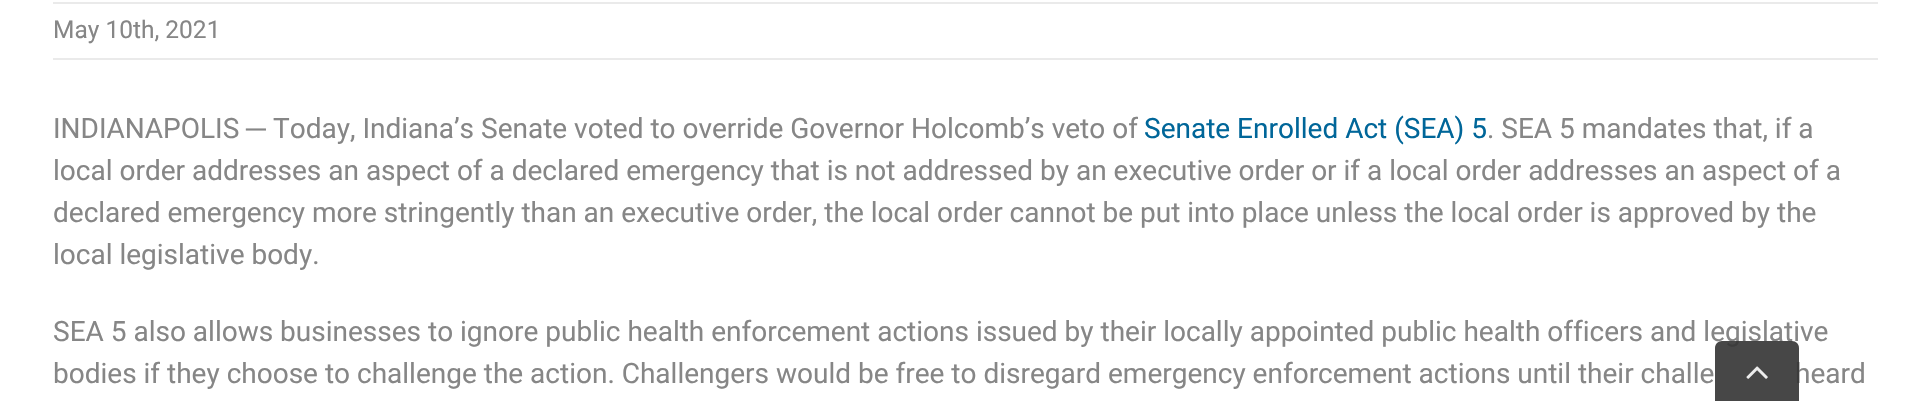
void draw(SkCanvas* canvas) {
	SkPaint fill;
	fill.setAntiAlias(true);
	auto makeFont = [&](const char* family, int weight, float size, bool italic = false) {
		SkFontStyle style(weight, SkFontStyle::kNormal_Width,
			italic ? SkFontStyle::kItalic_Slant : SkFontStyle::kUpright_Slant);
		SkFont result(fontMgr->matchFamilyStyle(family, style), size);
		result.setSubpixel(true);
		return result;
	};
	auto text = [&](const char* s, float x, float y, const SkFont& font) {
		canvas->drawString(s, x, y, font, fill);
	};
	auto box = [&](float l, float t, float r, float b) {
		canvas->drawRect(SkRect::MakeLTRB(l, t, r, b), fill);
	};
	auto picture = [&](const char* path, float l, float t, float r, float b) {
		auto image = SkImages::DeferredFromEncodedData(SkData::MakeFromFileName(path));
		canvas->drawImageRect(image, SkRect::MakeLTRB(l, t, r, b), SkSamplingOptions());
	};
	canvas->clear(0xFFFFFFFF);
	fill.setColor(0xFFEAEAEA);
	box(53, 2, 1878, 4);
	box(53, 58, 1878, 60);
	auto font1 = makeFont("Roboto", 400, 24.5f);
	fill.setColor(0xFF868686);
	text("May 10th, 2021", 53, 38, font1);
	auto font2 = makeFont("Roboto", 400, 28);
	text("INDIANAPOLIS", 53, 138, font2);
	auto font3 = makeFont("Liberation Sans", 400, 28);
	text("─", 246, 138, font3);
	text("Today, Indiana’s Senate voted to override Governor Holcomb’s veto of", 273, 138, font2);
	fill.setColor(0xFF006699);
	text("Senate Enrolled Act (SEA) 5", 1144, 138, font2);
	fill.setColor(0xFF868686);
	text(". SEA 5 mandates that, if a", 1487, 138, font2);
	text("local order addresses an aspect of a declared emergency that is not addressed by an executive order or if a local order addresses an aspect of a", 53, 180, font2);
	text("declared emergency more stringently than an executive order, the local order cannot be put into place unless the local order is approved by the", 53, 222, font2);
	text("local legislative body.", 53, 264, font2);
	text("SEA 5 also allows businesses to ignore public health enforcement actions issued by their locally appointed public health officers and legislative", 53, 341, font2);
	text("bodies if they choose to challenge the action. Challengers would be free to disregard emergency enforcement actions until their challe", 53, 383, font2);
	text("heard", 1795, 383, font2);
	fill.setColor(0xE6333333);
	canvas->drawPath(SkPathBuilder().moveTo(1722, 341).lineTo(1792, 341).cubicTo(1796, 341, 1799, 344, 1799, 348).lineTo(1799, 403).lineTo(1715, 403).lineTo(1715, 348).cubicTo(1715, 344, 1718, 341, 1722, 341).close().detach(), fill);
	picture("image0.png", 1746, 366, 1768, 379);
}
